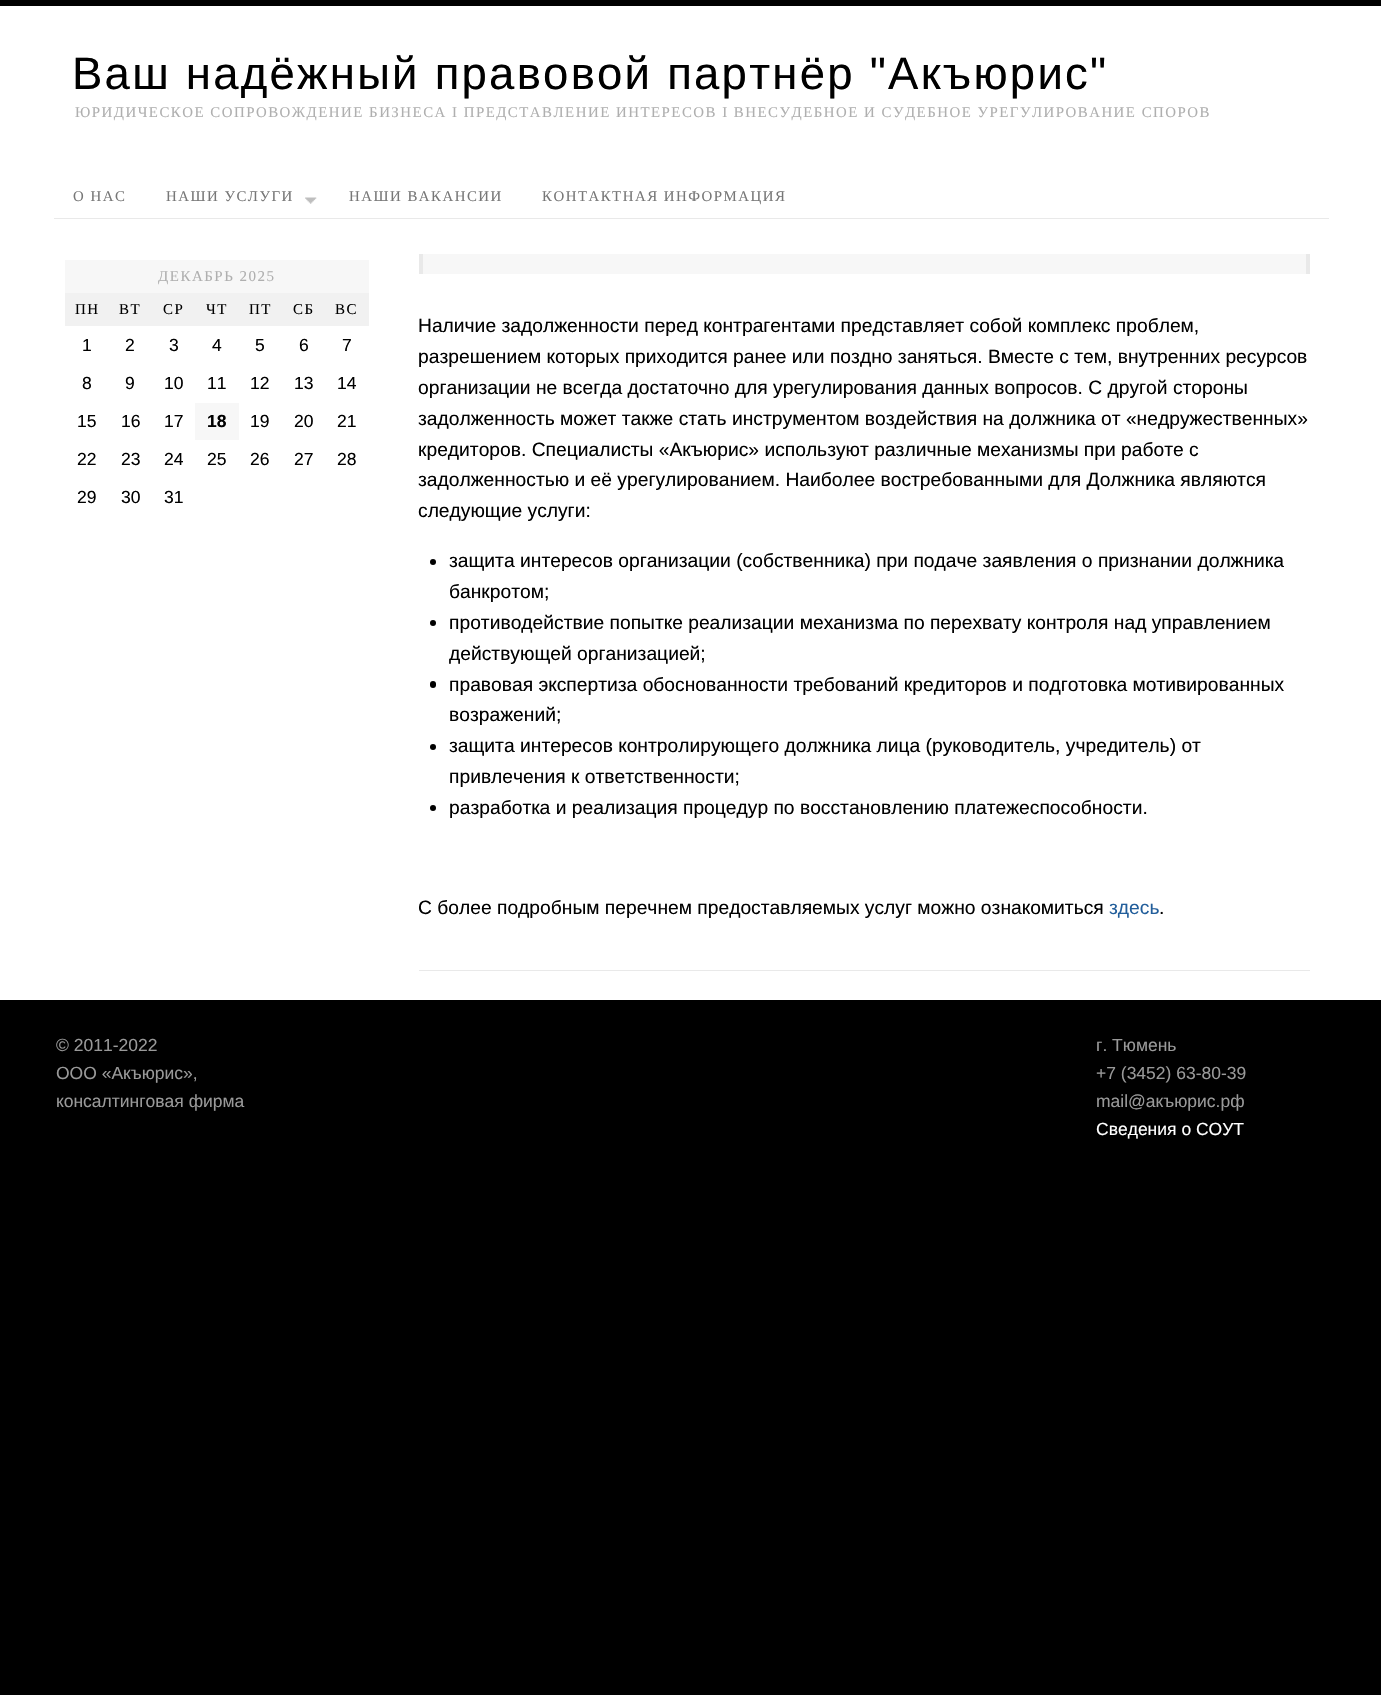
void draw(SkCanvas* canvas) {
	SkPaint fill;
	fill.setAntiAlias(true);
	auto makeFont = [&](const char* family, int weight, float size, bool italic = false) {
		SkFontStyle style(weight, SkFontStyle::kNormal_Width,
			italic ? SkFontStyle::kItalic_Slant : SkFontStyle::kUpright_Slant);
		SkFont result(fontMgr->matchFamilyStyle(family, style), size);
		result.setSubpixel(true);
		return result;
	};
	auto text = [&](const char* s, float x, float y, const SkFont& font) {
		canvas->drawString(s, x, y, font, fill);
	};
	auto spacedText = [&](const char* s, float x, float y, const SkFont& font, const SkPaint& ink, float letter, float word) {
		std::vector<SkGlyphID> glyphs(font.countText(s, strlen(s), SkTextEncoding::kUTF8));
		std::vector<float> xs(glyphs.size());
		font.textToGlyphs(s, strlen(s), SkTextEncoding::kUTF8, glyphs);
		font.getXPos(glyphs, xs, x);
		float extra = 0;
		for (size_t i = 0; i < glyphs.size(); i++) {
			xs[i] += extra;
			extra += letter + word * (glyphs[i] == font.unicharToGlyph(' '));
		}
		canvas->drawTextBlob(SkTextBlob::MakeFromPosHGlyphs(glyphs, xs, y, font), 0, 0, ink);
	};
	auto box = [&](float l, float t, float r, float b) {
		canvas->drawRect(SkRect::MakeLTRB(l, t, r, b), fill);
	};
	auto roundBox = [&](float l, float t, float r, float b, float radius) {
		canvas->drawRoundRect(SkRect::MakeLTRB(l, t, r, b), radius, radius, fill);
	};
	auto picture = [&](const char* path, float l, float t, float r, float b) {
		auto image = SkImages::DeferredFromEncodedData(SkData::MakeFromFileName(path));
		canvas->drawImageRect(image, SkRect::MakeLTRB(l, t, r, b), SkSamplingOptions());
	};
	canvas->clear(0xFF000000);
	fill.setColor(0xFFFFFFFF);
	box(0, 6, 1381, 1000);
	fill.setColor(0xFFE9E9E9);
	box(54, 218, 1329, 219);
	picture("image0.png", 305, 197, 317, 204);
	fill.setColor(0xFFF7F7F7);
	box(65, 260, 369, 293);
	fill.setColor(0xFFF1F1F1);
	box(65, 293, 369, 326);
	fill.setColor(0xFFF7F7F7);
	box(195, 403, 239, 440);
	box(423, 254, 1306, 274);
	fill.setColor(0xFFE9E9E9);
	box(1306, 254, 1310, 274);
	box(419, 254, 423, 274);
	box(419, 970, 1310, 971);
	fill.setColor(0xFF000000);
	canvas->drawCircle(433, 562, 3, fill);
	canvas->drawCircle(433, 623, 3, fill);
	roundBox(430, 681, 436, 688, 3);
	canvas->drawCircle(433, 747, 3, fill);
	canvas->drawCircle(433, 808, 3, fill);
	auto font1 = makeFont("Liberation Sans", 400, 45.5f);
	spacedText("Ваш надёжный правовой партнёр \"Акъюрис\"", 72, 89, font1, fill, 2.25f, 0);
	auto font2 = makeFont("Liberation Serif", 400, 14.88f);
	fill.setColor(0xFFAFAFAF);
	spacedText("ЮРИДИЧЕСКОЕ СОПРОВОЖДЕНИЕ БИЗНЕСА I ПРЕДСТАВЛЕНИЕ ИНТЕРЕСОВ I ВНЕСУДЕБНОЕ И СУДЕБНОЕ УРЕГУЛИРОВАНИЕ СПОРОВ", 75, 117, font2, fill, 1.49f, 0);
	fill.setColor(0xFF777777);
	spacedText("О НАС", 73, 201, font2, fill, 1.49f, 0);
	spacedText("НАШИ УСЛУГИ", 166, 201, font2, fill, 1.49f, 0);
	spacedText("НАШИ ВАКАНСИИ", 349, 201, font2, fill, 1.49f, 0);
	spacedText("КОНТАКТНАЯ ИНФОРМАЦИЯ", 542, 201, font2, fill, 1.49f, 0);
	auto font3 = makeFont("Liberation Serif", 400, 15);
	fill.setColor(0xFFAFAFAF);
	spacedText("ДЕКАБРЬ 2025", 158, 281, font3, fill, 1.5f, 0);
	fill.setColor(0xFF000000);
	spacedText("ПН", 75, 314, font3, fill, 1.5f, 0);
	spacedText("ВТ", 119, 314, font3, fill, 1.5f, 0);
	spacedText("СР", 163, 314, font3, fill, 1.5f, 0);
	spacedText("ЧТ", 206, 314, font3, fill, 1.5f, 0);
	spacedText("ПТ", 249, 314, font3, fill, 1.5f, 0);
	spacedText("СБ", 293, 314, font3, fill, 1.5f, 0);
	spacedText("ВС", 335, 314, font3, fill, 1.5f, 0);
	auto font4 = makeFont("Liberation Sans", 400, 17.5f);
	text("1", 82, 351, font4);
	text("2", 125, 351, font4);
	text("3", 169, 351, font4);
	text("4", 212, 351, font4);
	text("5", 255, 351, font4);
	text("6", 299, 351, font4);
	text("7", 342, 351, font4);
	text("8", 82, 389, font4);
	text("9", 125, 389, font4);
	text("10", 164, 389, font4);
	text("11", 207, 389, font4);
	text("12", 250, 389, font4);
	text("13", 294, 389, font4);
	text("14", 337, 389, font4);
	text("15", 77, 427, font4);
	text("16", 121, 427, font4);
	text("17", 164, 427, font4);
	auto font5 = makeFont("Liberation Sans", 700, 17.5f);
	text("18", 207, 427, font5);
	text("19", 250, 427, font4);
	text("20", 294, 427, font4);
	text("21", 337, 427, font4);
	text("22", 77, 465, font4);
	text("23", 121, 465, font4);
	text("24", 164, 465, font4);
	text("25", 207, 465, font4);
	text("26", 250, 465, font4);
	text("27", 294, 465, font4);
	text("28", 337, 465, font4);
	text("29", 77, 503, font4);
	text("30", 121, 503, font4);
	text("31", 164, 503, font4);
	auto font6 = makeFont("Liberation Sans", 400, 19.25f);
	text("Наличие задолженности перед контрагентами представляет собой комплекс проблем,", 418, 332, font6);
	text("разрешением которых приходится ранее или поздно заняться. Вместе с тем, внутренних ресурсов", 418, 363, font6);
	text("организации не всегда достаточно для урегулирования данных вопросов. С другой стороны", 418, 394, font6);
	text("задолженность может также стать инструментом воздействия на должника от «недружественных»", 418, 425, font6);
	text("кредиторов. Специалисты «Акъюрис» используют различные механизмы при работе с", 418, 456, font6);
	text("задолженностью и её урегулированием. Наиболее востребованными для Должника являются", 418, 486, font6);
	text("следующие услуги:", 418, 517, font6);
	text("защита интересов организации (собственника) при подаче заявления о признании должника", 449, 567, font6);
	text("банкротом;", 449, 598, font6);
	text("противодействие попытке реализации механизма по перехвату контроля над управлением", 449, 629, font6);
	text("действующей организацией;", 449, 660, font6);
	text("правовая экспертиза обоснованности требований кредиторов и подготовка мотивированных", 449, 691, font6);
	text("возражений;", 449, 721, font6);
	text("защита интересов контролирующего должника лица (руководитель, учредитель) от", 449, 752, font6);
	text("привлечения к ответственности;", 449, 783, font6);
	text("разработка и реализация процедур по восстановлению платежеспособности.", 449, 814, font6);
	text("С более подробным перечнем предоставляемых услуг можно ознакомиться", 418, 914, font6);
	fill.setColor(0xFF225E9B);
	text("здесь", 1109, 914, font6);
	fill.setColor(0xFF000000);
	text(".", 1159, 914, font6);
	fill.setColor(0xFF999999);
	text("© 2011-2022", 56, 1051, font4);
	text("ООО «Акъюрис»,", 56, 1079, font4);
	text("консалтинговая фирма", 56, 1107, font4);
	text("г. Тюмень", 1096, 1051, font4);
	text("+7 (3452) 63-80-39", 1096, 1079, font4);
	text("mail@акъюрис.рф", 1096, 1107, font4);
	fill.setColor(0xFFFFFFFF);
	text("Сведения о СОУТ", 1096, 1135, font4);
}
